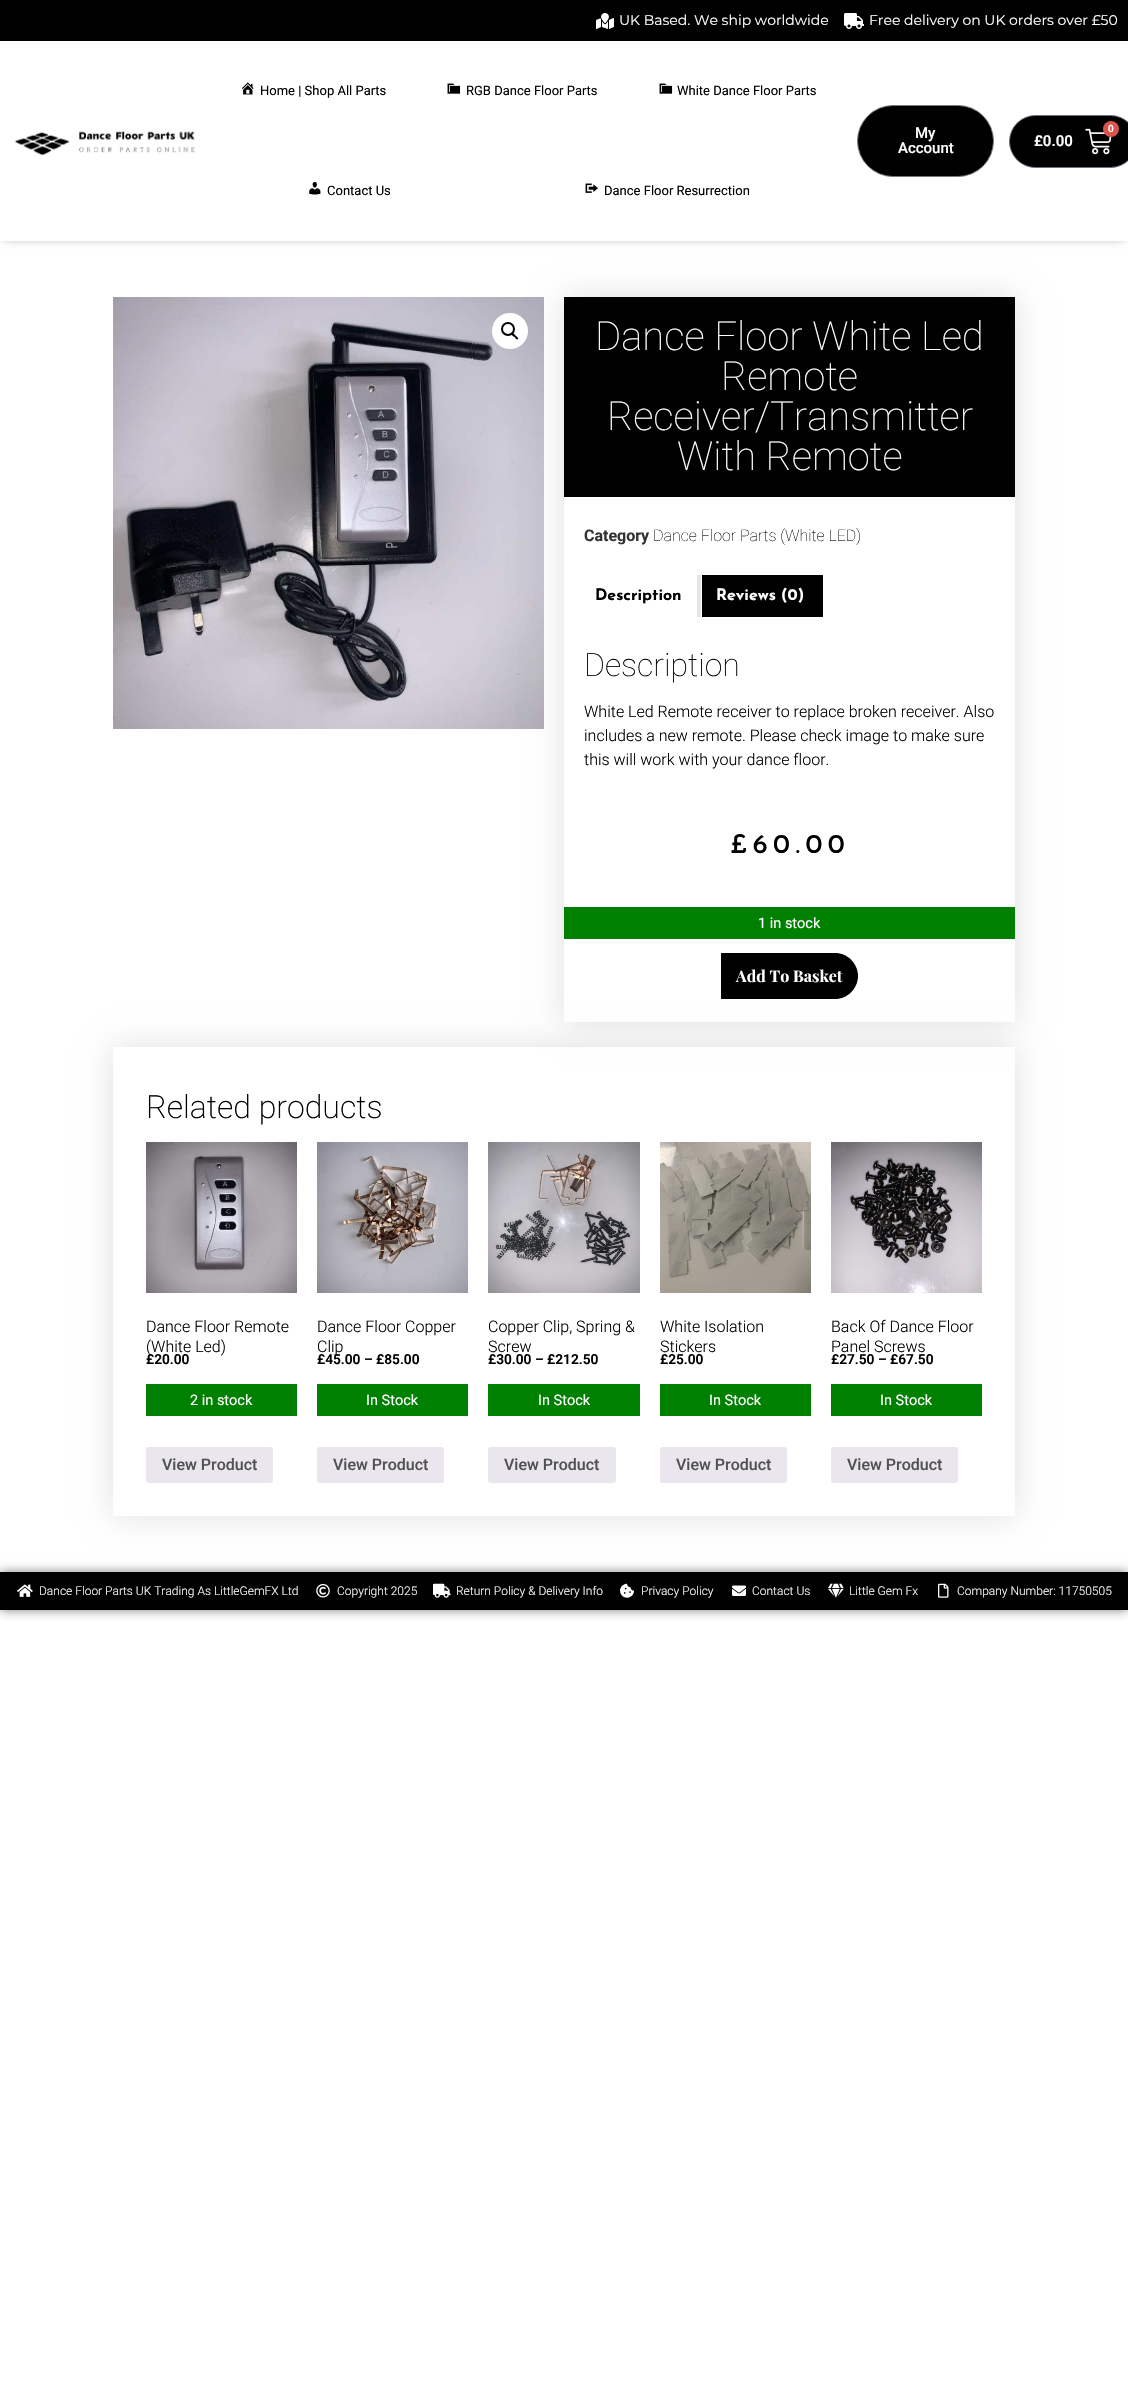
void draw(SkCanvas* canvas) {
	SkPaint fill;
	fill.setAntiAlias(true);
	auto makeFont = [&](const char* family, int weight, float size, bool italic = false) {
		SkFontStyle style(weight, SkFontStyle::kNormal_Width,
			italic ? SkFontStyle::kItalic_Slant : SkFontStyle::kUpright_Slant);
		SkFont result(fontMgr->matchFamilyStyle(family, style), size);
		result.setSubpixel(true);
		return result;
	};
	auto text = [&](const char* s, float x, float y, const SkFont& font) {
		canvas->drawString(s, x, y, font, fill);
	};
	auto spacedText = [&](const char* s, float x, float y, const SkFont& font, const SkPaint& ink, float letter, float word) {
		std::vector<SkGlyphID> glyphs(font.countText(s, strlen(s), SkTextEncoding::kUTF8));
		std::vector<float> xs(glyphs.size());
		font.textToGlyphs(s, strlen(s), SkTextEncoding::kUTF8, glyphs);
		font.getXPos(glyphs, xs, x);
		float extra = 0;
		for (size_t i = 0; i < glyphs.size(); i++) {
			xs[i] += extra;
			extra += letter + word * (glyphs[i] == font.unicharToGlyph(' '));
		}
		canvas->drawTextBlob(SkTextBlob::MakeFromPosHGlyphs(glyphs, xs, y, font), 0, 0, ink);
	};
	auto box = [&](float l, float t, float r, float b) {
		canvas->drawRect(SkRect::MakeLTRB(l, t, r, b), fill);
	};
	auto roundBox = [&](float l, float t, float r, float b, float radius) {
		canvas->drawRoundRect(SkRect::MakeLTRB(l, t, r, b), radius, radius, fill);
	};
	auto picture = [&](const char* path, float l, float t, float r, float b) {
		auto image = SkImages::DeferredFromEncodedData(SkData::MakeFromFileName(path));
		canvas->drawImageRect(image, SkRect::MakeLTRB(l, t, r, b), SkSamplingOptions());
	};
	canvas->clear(0xFFFFFFFF);
	fill.setColor(0xFF000000);
	box(0, 0, 1128, 41);
	picture("image0.png", 596, 13, 614, 29);
	picture("image1.png", 844, 13, 864, 29);
	canvas->save();
	canvas->clipPath(SkPathBuilder(SkPathFillType::kEvenOdd).moveTo(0, 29).lineTo(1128, 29).lineTo(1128, 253).lineTo(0, 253).close().moveTo(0, 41).lineTo(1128, 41).lineTo(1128, 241).lineTo(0, 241).close().detach(), true);
	fill.setColor(0x80000000);
	fill.setMaskFilter(SkMaskFilter::MakeBlur(kNormal_SkBlurStyle, 5));
	canvas->drawRect(SkRect::MakeLTRB(4, 45, 1124, 237), fill);
	fill.setMaskFilter(nullptr);
	canvas->restore();
	picture("image2.png", 15, 131, 195, 156);
	picture("image3.png", 242, 82, 254, 95);
	picture("image4.png", 447, 83, 461, 94);
	picture("image4.png", 659, 83, 673, 94);
	picture("image5.png", 309, 182, 321, 195);
	picture("image6.png", 585, 183, 598, 193);
	fill.setColor(0xFF000000);
	canvas->drawRoundRect(SkRect::MakeLTRB(857.5f, 105.5f, 993.5f, 176.5f), 35.5f, 35.5f, fill);
	fill.setStyle(SkPaint::kStroke_Style);
	fill.setStrokeWidth(1);
	fill.setColor(0xFF797979);
	canvas->drawRoundRect(SkRect::MakeLTRB(857.5f, 105.5f, 993.5f, 176.5f), 35.5f, 35.5f, fill);
	fill.setStyle(SkPaint::kFill_Style);
	fill.setColor(0xFF000000);
	canvas->drawRoundRect(SkRect::MakeLTRB(1009.5f, 115.5f, 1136.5f, 167.5f), 26, 26, fill);
	fill.setStyle(SkPaint::kStroke_Style);
	fill.setColor(0xFF69727D);
	canvas->drawRoundRect(SkRect::MakeLTRB(1009.5f, 115.5f, 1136.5f, 167.5f), 26, 26, fill);
	picture("image7.png", 1085, 128, 1112, 155);
	fill.setStyle(SkPaint::kFill_Style);
	fill.setColor(0xFFD9534F);
	canvas->drawCircle(1111, 129, 8, fill);
	picture("image8.png", 113, 297, 544, 729);
	canvas->save();
	canvas->clipPath(SkPathBuilder(SkPathFillType::kEvenOdd).moveTo(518, 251).lineTo(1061, 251).lineTo(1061, 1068).lineTo(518, 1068).close().moveTo(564, 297).lineTo(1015, 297).lineTo(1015, 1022).lineTo(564, 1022).close().detach(), true);
	fill.setColor(0x1F000000);
	fill.setMaskFilter(SkMaskFilter::MakeBlur(kNormal_SkBlurStyle, 15));
	canvas->drawRect(SkRect::MakeLTRB(564, 297, 1015, 1022), fill);
	fill.setMaskFilter(nullptr);
	canvas->restore();
	fill.setColor(0xFFFFFFFF);
	canvas->drawCircle(510, 331, 18, fill);
	fill.setStyle(SkPaint::kStroke_Style);
	fill.setStrokeWidth(2);
	fill.setColor(0xFF000000);
	canvas->drawCircle(508, 329, 6, fill);
	fill.setStyle(SkPaint::kFill_Style);
	canvas->drawPath(SkPathBuilder().moveTo(512, 333.5f).cubicTo(513.5f, 332.5f, 515, 335, 515.5f, 335.5f).cubicTo(516.5f, 336.5f, 519, 338, 518, 339).cubicTo(516.5f, 340.5f, 515, 337.5f, 514.5f, 337).cubicTo(513.5f, 336.5f, 511, 335, 512, 333.5f).close().detach(), fill);
	box(564, 297, 1015, 497);
	box(697, 575, 823, 617);
	fill.setColor(0xE6FFFFFF);
	box(697, 575, 702, 617);
	fill.setColor(0xFFFFFFFF);
	canvas->drawPath(SkPathBuilder().moveTo(702, 574).lineTo(702, 618).lineTo(701, 617).lineTo(701, 575).close().detach(), fill);
	fill.setColor(0xFF008000);
	box(564, 907, 1015, 939);
	fill.setColor(0xFF000000);
	canvas->drawPath(SkPathBuilder().moveTo(721, 953).lineTo(835, 953).cubicTo(847.5f, 953, 858, 963.5f, 858, 976).cubicTo(858, 988.5f, 847.5f, 999, 835, 999).lineTo(721, 999).close().detach(), fill);
	canvas->save();
	canvas->clipPath(SkPathBuilder(SkPathFillType::kEvenOdd).moveTo(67, 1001).lineTo(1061, 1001).lineTo(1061, 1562).lineTo(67, 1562).close().moveTo(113, 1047).lineTo(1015, 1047).lineTo(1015, 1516).lineTo(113, 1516).close().detach(), true);
	fill.setColor(0x1F000000);
	fill.setMaskFilter(SkMaskFilter::MakeBlur(kNormal_SkBlurStyle, 15));
	canvas->drawRect(SkRect::MakeLTRB(113, 1047, 1015, 1516), fill);
	fill.setMaskFilter(nullptr);
	canvas->restore();
	picture("image9.png", 146, 1142, 297, 1293);
	fill.setColor(0xFF008000);
	box(146, 1384, 297, 1416);
	fill.setColor(0xFFE9E6ED);
	roundBox(146, 1447, 273, 1483, 3);
	picture("image10.png", 317, 1142, 468, 1293);
	fill.setColor(0xFF008000);
	box(317, 1384, 468, 1416);
	fill.setColor(0xFFE9E6ED);
	roundBox(317, 1447, 444, 1483, 3);
	picture("image11.png", 488, 1142, 640, 1293);
	fill.setColor(0xFF008000);
	box(488, 1384, 640, 1416);
	fill.setColor(0xFFE9E6ED);
	roundBox(488, 1447, 616, 1483, 3);
	picture("image12.png", 660, 1142, 811, 1293);
	fill.setColor(0xFF008000);
	box(660, 1384, 811, 1416);
	fill.setColor(0xFFE9E6ED);
	roundBox(660, 1447, 787, 1483, 3);
	picture("image13.png", 831, 1142, 982, 1293);
	fill.setColor(0xFF008000);
	box(831, 1384, 982, 1416);
	fill.setColor(0xFFE9E6ED);
	roundBox(831, 1447, 958, 1483, 3);
	fill.setColor(0x80000000);
	fill.setMaskFilter(SkMaskFilter::MakeBlur(kNormal_SkBlurStyle, 5));
	canvas->drawRect(SkRect::MakeLTRB(0, 1572, 1128, 1610), fill);
	fill.setMaskFilter(nullptr);
	fill.setColor(0xFF000000);
	box(0, 1572, 1128, 1610);
	picture("image14.png", 17, 1584, 33, 1597);
	picture("image15.png", 316, 1584, 330, 1598);
	picture("image16.png", 433, 1583, 451, 1598);
	picture("image17.png", 620, 1583, 634, 1598);
	picture("image18.png", 732, 1585, 746, 1596);
	picture("image19.png", 828, 1583, 844, 1598);
	picture("image20.png", 938, 1583, 949, 1598);
	auto font1 = makeFont("Montserrat", 400, 14);
	fill.setColor(0xFFFFFFFF);
	text("UK Based. We ship worldwide", 619, 25, font1);
	text("Free delivery on UK orders over £50", 869, 25, font1);
	auto font2 = makeFont("Roboto", 400, 13);
	fill.setColor(0xFF000000);
	text("Home | Shop All Parts", 260, 95, font2);
	text("RGB Dance Floor Parts", 466, 95, font2);
	text("White Dance Floor Parts", 677, 95, font2);
	text("Contact Us", 327, 195, font2);
	text("Dance Floor Resurrection", 604, 195, font2);
	auto font3 = makeFont("Roboto", 500, 15);
	fill.setColor(0xFFFFFFFF);
	text("My", 915, 138, font3);
	text("Account", 898, 153, font3);
	auto font4 = makeFont("Roboto", 600, 10);
	text("0", 1108, 132, font4);
	auto font5 = makeFont("Roboto", 600, 15);
	text("£0.00", 1034, 146, font5);
	auto font6 = makeFont("Roboto", 100, 40);
	text("Dance Floor White Led", 595, 350, font6);
	text("Remote", 721, 390, font6);
	text("Receiver/Transmitter", 607, 430, font6);
	text("With Remote", 677, 470, font6);
	auto font7 = makeFont("Roboto", 700, 16);
	fill.setColor(0xFF333333);
	text("Category", 584, 541, font7);
	auto font8 = makeFont("Roboto", 100, 16);
	fill.setColor(0xFF000000);
	text("Dance Floor Parts (White LED)", 653, 541, font8);
	auto font9 = makeFont("Josefin Sans", 700, 16);
	text("Description", 595, 600, font9);
	fill.setColor(0xFFFFFFFF);
	text("Reviews (0)", 716, 600, font9);
	auto font10 = makeFont("Roboto", 100, 32);
	fill.setColor(0xFF000000);
	text("Description", 584, 676, font10);
	auto font11 = makeFont("Roboto", 300, 16);
	text("White Led Remote receiver to replace broken receiver. Also", 584, 717, font11);
	text("includes a new remote. Please check image to make sure", 584, 741, font11);
	text("this will work with your dance floor.", 584, 765, font11);
	auto font12 = makeFont("Josefin Sans", 500, 27);
	spacedText("£60.00", 730, 853, font12, fill, 5.5f, 0);
	auto font13 = makeFont("Roboto", 400, 14.5f);
	fill.setColor(0xFFFFFFFF);
	text("1 in stock", 758, 928, font13);
	auto font14 = makeFont("Playfair Display", 700, 16);
	text("Add To Basket", 736, 982, font14);
	auto font15 = makeFont("Roboto", 200, 32);
	fill.setColor(0xFF000000);
	text("Related products", 146, 1118, font15);
	text("Dance Floor Remote", 146, 1332, font11);
	text("(White Led)", 146, 1352, font11);
	auto font16 = makeFont("Roboto", 600, 13.75f);
	text("£20.00", 146, 1364, font16);
	fill.setColor(0xFFFFFFFF);
	text("2 in stock", 190, 1405, font13);
	auto font17 = makeFont("Roboto", 500, 16);
	fill.setColor(0xFF515151);
	text("View Product", 162, 1470, font17);
	fill.setColor(0xFF000000);
	text("Dance Floor Copper", 317, 1332, font11);
	text("Clip", 317, 1352, font11);
	text("£45.00 – £85.00", 317, 1364, font16);
	fill.setColor(0xFFFFFFFF);
	text("In Stock", 366, 1405, font13);
	fill.setColor(0xFF515151);
	text("View Product", 333, 1470, font17);
	fill.setColor(0xFF000000);
	text("Copper Clip, Spring &", 488, 1332, font11);
	text("Screw", 488, 1352, font11);
	text("£30.00 – £212.50", 488, 1364, font16);
	fill.setColor(0xFFFFFFFF);
	text("In Stock", 538, 1405, font13);
	fill.setColor(0xFF515151);
	text("View Product", 504, 1470, font17);
	fill.setColor(0xFF000000);
	text("White Isolation", 660, 1332, font11);
	text("Stickers", 660, 1352, font11);
	text("£25.00", 660, 1364, font16);
	fill.setColor(0xFFFFFFFF);
	text("In Stock", 709, 1405, font13);
	fill.setColor(0xFF515151);
	text("View Product", 676, 1470, font17);
	fill.setColor(0xFF000000);
	text("Back Of Dance Floor", 831, 1332, font11);
	text("Panel Screws", 831, 1352, font11);
	text("£27.50 – £67.50", 831, 1364, font16);
	fill.setColor(0xFFFFFFFF);
	text("In Stock", 880, 1405, font13);
	fill.setColor(0xFF515151);
	text("View Product", 847, 1470, font17);
	auto font18 = makeFont("Roboto", 300, 12);
	fill.setColor(0xFFFFFFFF);
	text("Dance Floor Parts UK Trading As LittleGemFX Ltd", 39, 1595, font18);
	text("Copyright 2025", 337, 1595, font18);
	text("Return Policy & Delivery Info", 456, 1595, font18);
	text("Privacy Policy", 641, 1595, font18);
	text("Contact Us", 752, 1595, font18);
	text("Little Gem Fx", 849, 1595, font18);
	text("Company Number: 11750505", 957, 1595, font18);
}
